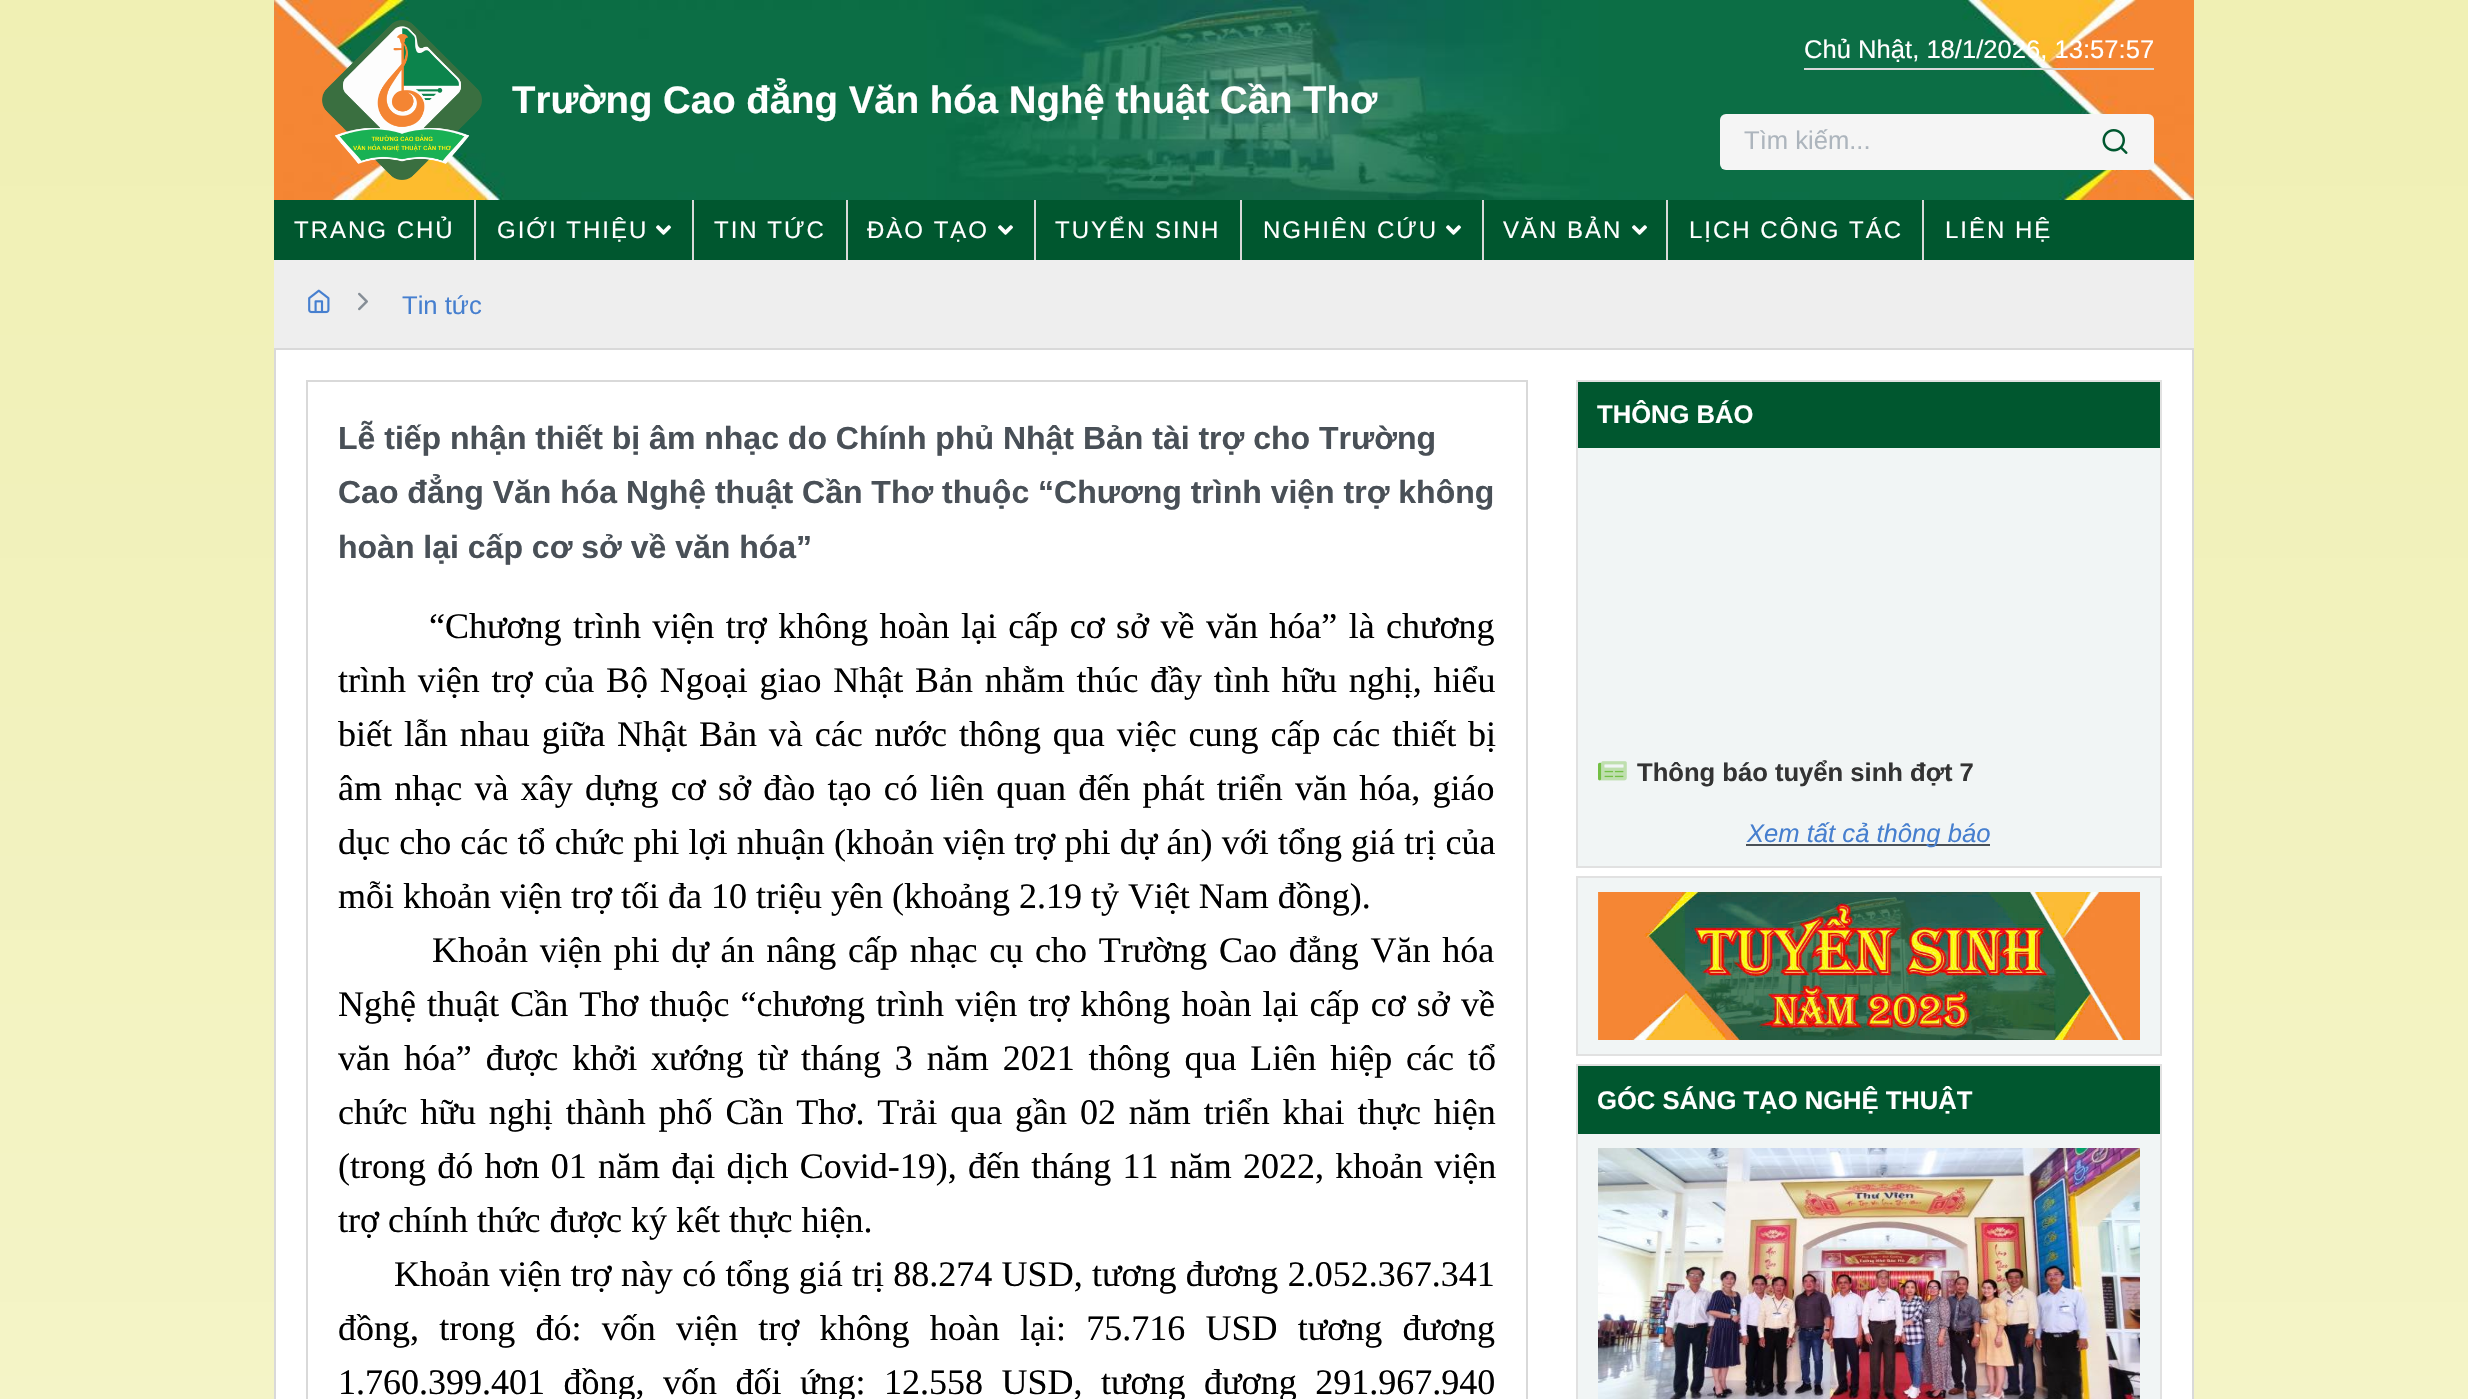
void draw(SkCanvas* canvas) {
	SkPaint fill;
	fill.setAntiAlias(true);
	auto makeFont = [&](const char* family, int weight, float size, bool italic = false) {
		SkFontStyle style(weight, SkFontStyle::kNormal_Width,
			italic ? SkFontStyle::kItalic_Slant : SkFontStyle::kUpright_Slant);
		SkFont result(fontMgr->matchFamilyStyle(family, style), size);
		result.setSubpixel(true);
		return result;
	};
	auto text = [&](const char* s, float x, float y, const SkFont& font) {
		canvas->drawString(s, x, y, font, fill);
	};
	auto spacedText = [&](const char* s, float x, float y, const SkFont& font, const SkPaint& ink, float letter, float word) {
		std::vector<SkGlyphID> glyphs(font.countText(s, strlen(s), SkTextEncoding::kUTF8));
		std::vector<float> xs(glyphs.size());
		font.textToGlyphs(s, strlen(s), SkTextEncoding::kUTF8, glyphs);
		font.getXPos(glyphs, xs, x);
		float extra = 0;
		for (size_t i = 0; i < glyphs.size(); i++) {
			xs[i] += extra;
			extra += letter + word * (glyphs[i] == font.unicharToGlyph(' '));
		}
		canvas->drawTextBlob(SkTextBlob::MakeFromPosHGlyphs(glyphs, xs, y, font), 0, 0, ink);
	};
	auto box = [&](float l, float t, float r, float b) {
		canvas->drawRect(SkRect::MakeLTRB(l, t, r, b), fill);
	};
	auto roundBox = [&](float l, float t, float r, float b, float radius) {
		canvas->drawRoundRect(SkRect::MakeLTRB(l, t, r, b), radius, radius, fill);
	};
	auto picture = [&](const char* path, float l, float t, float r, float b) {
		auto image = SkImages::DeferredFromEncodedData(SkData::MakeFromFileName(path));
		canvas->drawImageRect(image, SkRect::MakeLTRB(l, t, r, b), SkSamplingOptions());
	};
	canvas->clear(0xFFFFFFFF);
	{
		const SkColor colors[] = {0xFFF0F0B4, 0xFFFFFFFF};
		const float stops[] = {0, 1};
		const SkPoint ends[] = {{1234, 0}, {1234, 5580}};
		fill.setShader(SkGradientShader::MakeLinear(ends, colors, stops, 2, SkTileMode::kClamp));
		fill.setAlpha(255);
	}
	box(0, 0, 2468, 1399);
	picture("image0.png", 274, 0, 2194, 200);
	fill.setShader(nullptr);
	fill.setColor(0xFFD9D9D9);
	box(1804, 68, 2154, 70);
	picture("image1.png", 322, 20, 482, 180);
	fill.setColor(0xFFF5F5F5);
	roundBox(1720, 114, 2154, 170, 6);
	picture("image2.png", 2102, 129, 2128, 154);
	fill.setColor(0xFF00572F);
	box(274, 200, 2194, 260);
	fill.setColor(0xFFD9D9D9);
	box(474, 200, 476, 260);
	box(692, 200, 694, 260);
	picture("image3.png", 656, 225, 671, 235);
	box(846, 200, 848, 260);
	box(1034, 200, 1036, 260);
	picture("image3.png", 998, 225, 1013, 235);
	box(1240, 200, 1242, 260);
	box(1482, 200, 1484, 260);
	picture("image3.png", 1446, 225, 1461, 235);
	box(1666, 200, 1668, 260);
	picture("image3.png", 1632, 225, 1647, 235);
	box(1922, 200, 1924, 260);
	fill.setColor(0xFFEEEEEE);
	box(274, 260, 2194, 348);
	picture("image4.png", 308, 289, 330, 314);
	picture("image5.png", 358, 292, 368, 311);
	fill.setColor(0xFFFFFFFF);
	canvas->drawRect(SkRect::MakeLTRB(275, 349, 2193, 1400), fill);
	fill.setStyle(SkPaint::kStroke_Style);
	fill.setStrokeWidth(2);
	fill.setColor(0xFFD9D9D9);
	canvas->drawRect(SkRect::MakeLTRB(275, 349, 2193, 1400), fill);
	canvas->drawRect(SkRect::MakeLTRB(307, 381, 1527, 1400), fill);
	fill.setStyle(SkPaint::kFill_Style);
	fill.setColor(0xFFF1F5F5);
	box(1578, 448, 2160, 866);
	fill.setStyle(SkPaint::kStroke_Style);
	fill.setColor(0xFFE1E1E1);
	canvas->drawRect(SkRect::MakeLTRB(1577, 381, 2161, 867), fill);
	fill.setStyle(SkPaint::kFill_Style);
	fill.setColor(0xFF00572F);
	box(1578, 382, 2160, 448);
	picture("image6.png", 1598, 761, 1627, 781);
	fill.setColor(0xFF495057);
	box(1746, 844, 1990, 846);
	fill.setColor(0xFFF1F5F5);
	canvas->drawRect(SkRect::MakeLTRB(1577, 877, 2161, 1055), fill);
	fill.setStyle(SkPaint::kStroke_Style);
	fill.setColor(0xFFE1E1E1);
	canvas->drawRect(SkRect::MakeLTRB(1577, 877, 2161, 1055), fill);
	picture("image7.png", 1598, 892, 2140, 1040);
	fill.setStyle(SkPaint::kFill_Style);
	fill.setColor(0xFFF1F5F5);
	box(1578, 1134, 2160, 1399);
	fill.setStyle(SkPaint::kStroke_Style);
	fill.setColor(0xFFE1E1E1);
	canvas->drawRect(SkRect::MakeLTRB(1577, 1065, 2161, 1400), fill);
	fill.setStyle(SkPaint::kFill_Style);
	fill.setColor(0xFF00572F);
	box(1578, 1066, 2160, 1134);
	picture("image8.png", 1598, 1148, 2140, 1399);
	auto font1 = makeFont("Liberation Sans", 400, 25.6f);
	fill.setColor(0xFFFFFFFF);
	text("Chủ Nhật, 18/1/2026, 13:57:57", 1804, 58, font1);
	auto font2 = makeFont("Liberation Sans", 700, 38.4f);
	text("Trường Cao đẳng Văn hóa Nghệ thuật Cần Thơ", 512, 113, font2);
	fill.setColor(0xFFADB5BD);
	text("Tìm kiếm...", 1744, 149, font1);
	auto font3 = makeFont("Liberation Sans", 400, 24);
	fill.setColor(0xFFFFFFFF);
	spacedText("TRANG CHỦ", 294, 238, font3, fill, 2, 0);
	spacedText("GIỚI THIỆU", 497, 238, font3, fill, 2, 0);
	spacedText("TIN TỨC", 714, 238, font3, fill, 2, 0);
	spacedText("ĐÀO TẠO", 867, 238, font3, fill, 2, 0);
	spacedText("TUYỂN SINH", 1055, 238, font3, fill, 2, 0);
	spacedText("NGHIÊN CỨU", 1263, 238, font3, fill, 2, 0);
	spacedText("VĂN BẢN", 1503, 238, font3, fill, 2, 0);
	spacedText("LỊCH CÔNG TÁC", 1689, 238, font3, fill, 2, 0);
	spacedText("LIÊN HỆ", 1945, 238, font3, fill, 2, 0);
	fill.setColor(0xFF467FCF);
	text("Tin tức", 402, 314, font1);
	auto font4 = makeFont("Liberation Sans", 700, 32);
	fill.setColor(0xFF495057);
	text("Lễ tiếp nhận thiết bị âm nhạc do Chính phủ Nhật Bản tài trợ cho Trường", 338, 449, font4);
	text("Cao đẳng Văn hóa Nghệ thuật Cần Thơ thuộc “Chương trình viện trợ không", 338, 503, font4);
	text("hoàn lại cấp cơ sở về văn hóa”", 338, 558, font4);
	auto font5 = makeFont("Liberation Serif", 400, 36);
	fill.setColor(0xFF000000);
	spacedText("“Chương trình viện trợ không hoàn lại cấp cơ sở về văn hóa” là chương", 429, 638, font5, fill, 0, 2.4f);
	spacedText("trình viện trợ của Bộ Ngoại giao Nhật Bản nhằm thúc đầy tình hữu nghị, hiểu", 338, 692, font5, fill, 0, 2.75f);
	spacedText("biết lẫn nhau giữa Nhật Bản và các nước thông qua việc cung cấp các thiết bị", 338, 746, font5, fill, 0, 2.9f);
	spacedText("âm nhạc và xây dựng cơ sở đào tạo có liên quan đến phát triển văn hóa, giáo", 338, 800, font5, fill, 0, 3.25f);
	spacedText("dục cho các tổ chức phi lợi nhuận (khoản viện trợ phi dự án) với tổng giá trị của", 338, 854, font5, fill, 0, 0.2f);
	text("mỗi khoản viện trợ tối đa 10 triệu yên (khoảng 2.19 tỷ Việt Nam đồng).", 338, 908, font5);
	spacedText("Khoản viện phi dự án nâng cấp nhạc cụ cho Trường Cao đẳng Văn hóa", 432, 962, font5, fill, 0, 2.75f);
	spacedText("Nghệ thuật Cần Thơ thuộc “chương trình viện trợ không hoàn lại cấp cơ sở về", 338, 1016, font5, fill, 0, 2.1f);
	spacedText("văn hóa” được khởi xướng từ tháng 3 năm 2021 thông qua Liên hiệp các tổ", 338, 1070, font5, fill, 0, 4.9f);
	spacedText("chức hữu nghị thành phố Cần Thơ. Trải qua gần 02 năm triển khai thực hiện", 338, 1124, font5, fill, 0, 3.9f);
	spacedText("(trong đó hơn 01 năm đại dịch Covid-19), đến tháng 11 năm 2022, khoản viện", 338, 1178, font5, fill, 0, 2.25f);
	text("trợ chính thức được ký kết thực hiện.", 338, 1232, font5);
	spacedText("Khoản viện trợ này có tổng giá trị 88.274 USD, tương đương 2.052.367.341", 394, 1286, font5, fill, 0, 0.3f);
	spacedText("đồng, trong đó: vốn viện trợ không hoàn lại: 75.716 USD tương đương", 338, 1340, font5, fill, 0, 11.25f);
	spacedText("1.760.399.401 đồng, vốn đối ứng: 12.558 USD, tương đương 291.967.940", 338, 1394, font5, fill, 0, 9.5f);
	auto font6 = makeFont("Liberation Sans", 700, 25.6f);
	fill.setColor(0xFFFFFFFF);
	text("THÔNG BÁO", 1597, 423, font6);
	fill.setColor(0xFF333333);
	text("Thông báo tuyển sinh đợt 7", 1637, 781, font6);
	auto font7 = makeFont("Liberation Sans", 400, 25.6f, true);
	fill.setColor(0xFF467FCF);
	text("Xem tất cả thông báo", 1747, 842, font7);
	fill.setColor(0xFFFFFFFF);
	text("GÓC SÁNG TẠO NGHỆ THUẬT", 1597, 1109, font6);
}
